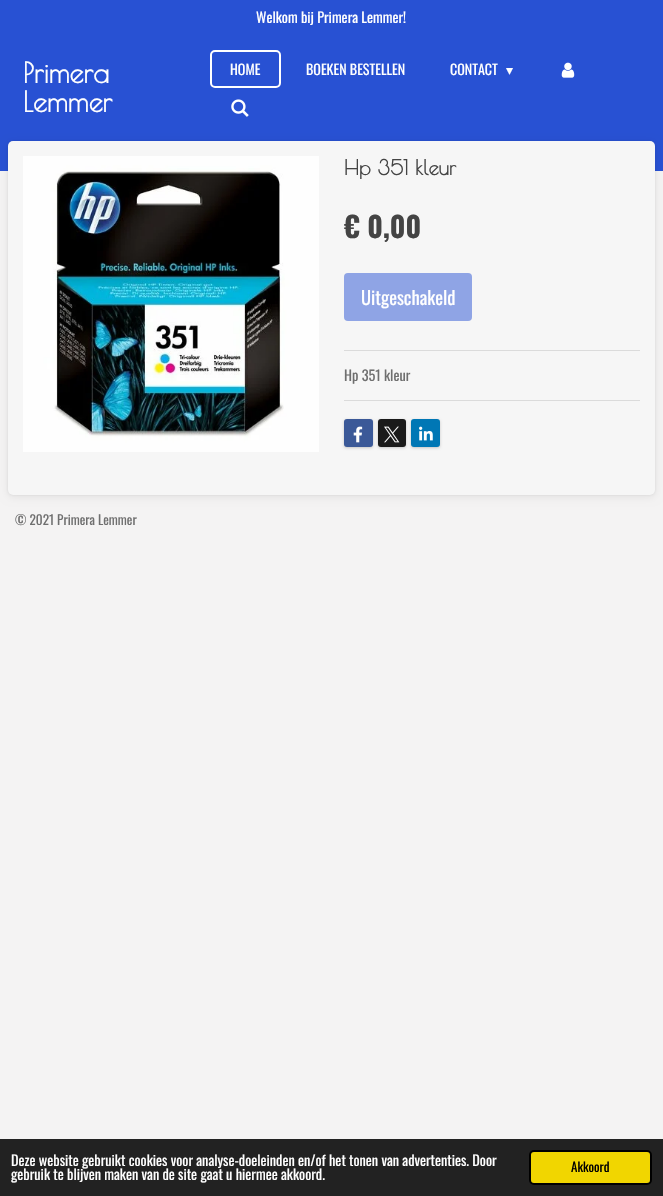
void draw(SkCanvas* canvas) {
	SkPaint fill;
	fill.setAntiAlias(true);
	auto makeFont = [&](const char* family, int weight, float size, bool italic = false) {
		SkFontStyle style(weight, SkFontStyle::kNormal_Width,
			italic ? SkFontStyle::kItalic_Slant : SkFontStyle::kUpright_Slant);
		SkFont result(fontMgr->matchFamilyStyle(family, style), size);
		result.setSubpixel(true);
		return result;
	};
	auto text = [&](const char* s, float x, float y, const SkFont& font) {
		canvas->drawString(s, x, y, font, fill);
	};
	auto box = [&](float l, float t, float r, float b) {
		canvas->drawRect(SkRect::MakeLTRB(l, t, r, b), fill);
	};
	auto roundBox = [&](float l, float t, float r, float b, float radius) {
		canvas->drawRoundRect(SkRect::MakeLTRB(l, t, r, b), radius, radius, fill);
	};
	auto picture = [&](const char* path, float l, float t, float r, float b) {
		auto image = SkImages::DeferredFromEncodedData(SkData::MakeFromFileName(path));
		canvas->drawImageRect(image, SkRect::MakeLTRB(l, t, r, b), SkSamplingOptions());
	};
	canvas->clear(0xFFF4F3F3);
	fill.setColor(0xFF2851D3);
	box(0, 0, 663, 171);
	fill.setStyle(SkPaint::kStroke_Style);
	fill.setStrokeWidth(2);
	fill.setColor(0xFFFFFFFF);
	canvas->drawRoundRect(SkRect::MakeLTRB(211, 51, 280, 87), 4, 4, fill);
	picture("image0.png", 561, 62, 575, 78);
	picture("image1.png", 231, 99, 249, 117);
	fill.setStyle(SkPaint::kFill_Style);
	fill.setColor(0x1A000000);
	fill.setMaskFilter(SkMaskFilter::MakeBlur(kNormal_SkBlurStyle, 1));
	canvas->drawRoundRect(SkRect::MakeLTRB(8, 141, 655, 495), 5, 5, fill);
	fill.setMaskFilter(nullptr);
	fill.setColor(0x12000000);
	fill.setMaskFilter(SkMaskFilter::MakeBlur(kNormal_SkBlurStyle, 4));
	canvas->drawRoundRect(SkRect::MakeLTRB(8, 143, 655, 497), 5, 5, fill);
	fill.setMaskFilter(nullptr);
	fill.setColor(0xFFF6F6F6);
	roundBox(8, 141, 655, 495, 5);
	picture("image2.png", 23, 156, 319, 452);
	fill.setColor(0xFF8FA4E5);
	roundBox(344, 273, 472, 321, 4);
	fill.setColor(0xFFDBDBDB);
	box(344, 350, 640, 351);
	box(344, 400, 640, 401);
	fill.setColor(0x33000000);
	fill.setMaskFilter(SkMaskFilter::MakeBlur(kNormal_SkBlurStyle, 1.5f));
	canvas->drawRoundRect(SkRect::MakeLTRB(344, 420, 373, 448), 3, 3, fill);
	fill.setMaskFilter(nullptr);
	fill.setColor(0xFF3B5998);
	roundBox(344, 419, 373, 447, 3);
	picture("image3.png", 353, 426, 363, 443);
	fill.setColor(0x33000000);
	fill.setMaskFilter(SkMaskFilter::MakeBlur(kNormal_SkBlurStyle, 1.5f));
	canvas->drawRoundRect(SkRect::MakeLTRB(378, 420, 406, 448), 3, 3, fill);
	fill.setMaskFilter(nullptr);
	fill.setColor(0xFF1A1A1A);
	roundBox(378, 419, 406, 447, 3);
	picture("image4.png", 384, 426, 400, 443);
	fill.setColor(0x33000000);
	fill.setMaskFilter(SkMaskFilter::MakeBlur(kNormal_SkBlurStyle, 1.5f));
	canvas->drawRoundRect(SkRect::MakeLTRB(411, 420, 440, 448), 3, 3, fill);
	fill.setMaskFilter(nullptr);
	fill.setColor(0xFF0077B5);
	roundBox(411, 419, 440, 447, 3);
	picture("image5.png", 419, 426, 433, 441);
	fill.setColor(0xFF222222);
	box(0, 1139, 663, 1196);
	fill.setColor(0xFFF1D600);
	canvas->drawRoundRect(SkRect::MakeLTRB(530, 1151, 651, 1184), 4, 4, fill);
	fill.setStyle(SkPaint::kStroke_Style);
	fill.setColor(0xFF000000);
	canvas->drawRoundRect(SkRect::MakeLTRB(530, 1151, 651, 1184), 4, 4, fill);
	auto font1 = makeFont("Oswald", 400, 14.3f);
	fill.setStyle(SkPaint::kFill_Style);
	fill.setColor(0xFFFFFFFF);
	text("Welkom bij Primera Lemmer!", 256, 23, font1);
	auto font2 = makeFont("Poiret One", 700, 28);
	text("Primera", 23, 83, font2);
	text("Lemmer", 23, 112, font2);
	auto font3 = makeFont("Oswald", 400, 14);
	text("HOME", 230, 75, font3);
	text("BOEKEN BESTELLEN", 306, 75, font3);
	text("CONTACT", 450, 75, font3);
	auto font4 = makeFont("DejaVu Sans", 400, 14);
	text("▾", 506, 75, font4);
	auto font5 = makeFont("Poiret One", 700, 20.5f);
	fill.setColor(0xFF444444);
	text("Hp 351 kleur", 344, 175, font5);
	auto font6 = makeFont("Oswald", 700, 28.5f);
	text("€ 0,00", 344, 238, font6);
	auto font7 = makeFont("Oswald", 400, 18.5f);
	fill.setColor(0xFFFFFFFF);
	text("Uitgeschakeld", 361, 305, font7);
	fill.setColor(0xFF6F6F6F);
	text("Hp 351 kleur", 344, 381, font1);
	auto font8 = makeFont("Oswald", 400, 13.25f);
	text("© 2021 Primera Lemmer", 15, 525, font8);
	fill.setColor(0xFFFFFFFF);
	text("Deze website gebruikt cookies voor analyse-doeleinden en/of het tonen van advertenties. Door", 11, 1166, font1);
	text("gebruik te blijven maken van de site gaat u hiermee akkoord.", 11, 1180, font1);
	auto font9 = makeFont("Oswald", 400, 13);
	fill.setColor(0xFF000000);
	text("Akkoord", 571, 1172, font9);
}
